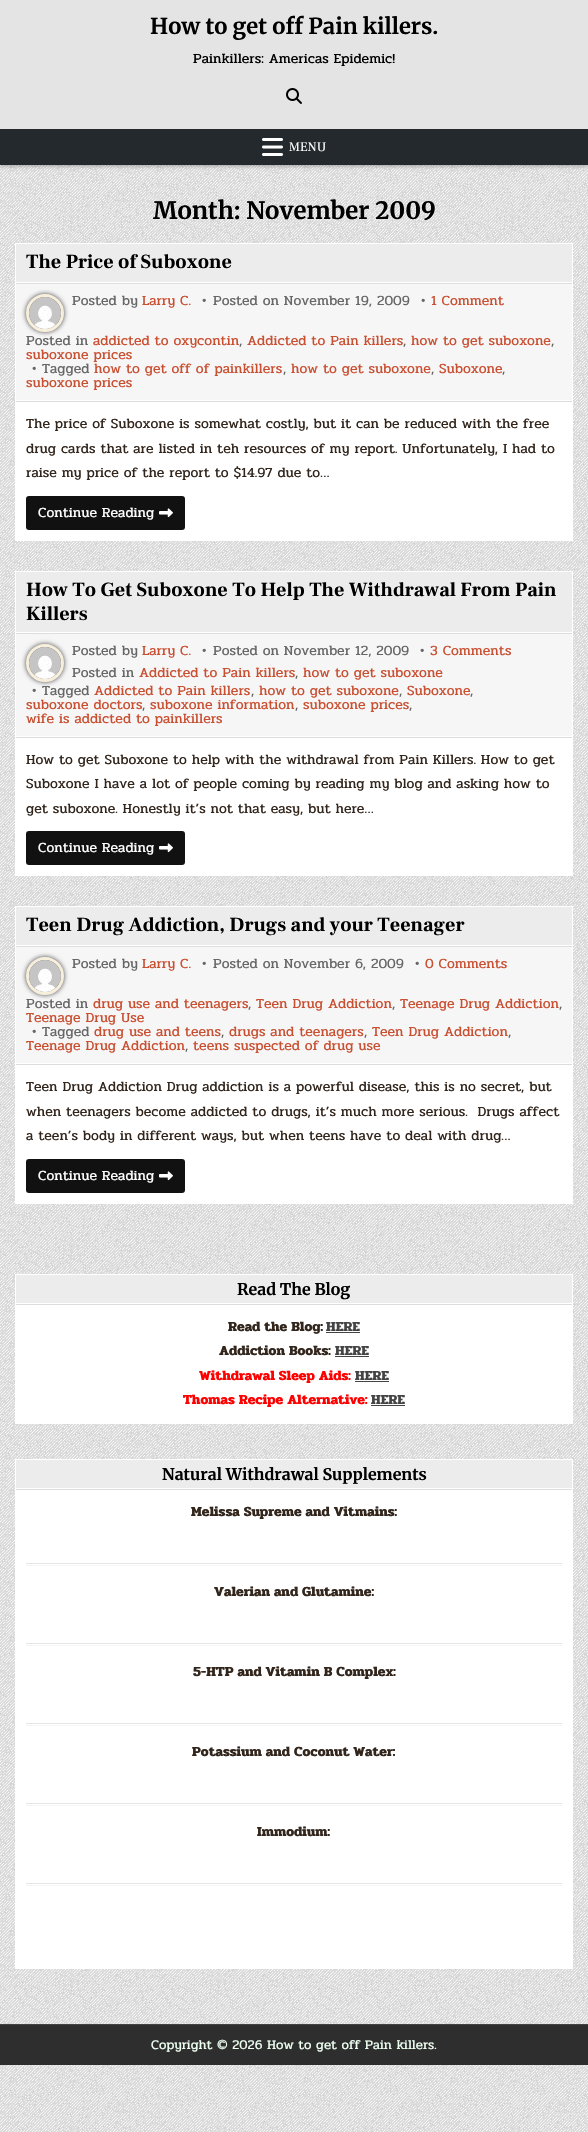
void draw(SkCanvas* canvas) {
	SkPaint fill;
	fill.setAntiAlias(true);
	auto makeFont = [&](const char* family, int weight, float size, bool italic = false) {
		SkFontStyle style(weight, SkFontStyle::kNormal_Width,
			italic ? SkFontStyle::kItalic_Slant : SkFontStyle::kUpright_Slant);
		SkFont result(fontMgr->matchFamilyStyle(family, style), size);
		result.setSubpixel(true);
		return result;
	};
	auto text = [&](const char* s, float x, float y, const SkFont& font) {
		canvas->drawString(s, x, y, font, fill);
	};
	auto box = [&](float l, float t, float r, float b) {
		canvas->drawRect(SkRect::MakeLTRB(l, t, r, b), fill);
	};
	auto roundBox = [&](float l, float t, float r, float b, float radius) {
		canvas->drawRoundRect(SkRect::MakeLTRB(l, t, r, b), radius, radius, fill);
	};
	auto picture = [&](const char* path, float l, float t, float r, float b) {
		auto image = SkImages::DeferredFromEncodedData(SkData::MakeFromFileName(path));
		canvas->drawImageRect(image, SkRect::MakeLTRB(l, t, r, b), SkSamplingOptions());
	};
	canvas->clear(0xFFFFFFFF);
	picture("image0.png", 0, 165, 588, 2132);
	fill.setColor(0x4D000000);
	fill.setMaskFilter(SkMaskFilter::MakeBlur(kNormal_SkBlurStyle, 2));
	canvas->drawRect(SkRect::MakeLTRB(0, 130, 588, 166), fill);
	fill.setMaskFilter(nullptr);
	fill.setColor(0xFFE4E4E4);
	box(0, 0, 588, 129);
	picture("image1.png", 286, 88, 302, 104);
	fill.setColor(0xFF24292D);
	box(0, 129, 588, 165);
	picture("image2.png", 262, 138, 283, 156);
	fill.setColor(0xFFFFFFFF);
	box(15, 243, 573, 541);
	fill.setColor(0xFFDDDDDD);
	box(16, 283, 572, 284);
	fill.setColor(0xFFECECEC);
	box(16, 244, 572, 282);
	fill.setColor(0xFFF6F6F6);
	box(16, 284, 572, 400);
	fill.setColor(0xFFDDDDDD);
	box(16, 401, 572, 402);
	fill.setColor(0xFF444444);
	fill.setMaskFilter(SkMaskFilter::MakeBlur(kNormal_SkBlurStyle, 2.5f));
	canvas->drawRoundRect(SkRect::MakeLTRB(26, 294, 64, 332), 19, 19, fill);
	fill.setMaskFilter(nullptr);
	fill.setStyle(SkPaint::kStroke_Style);
	fill.setStrokeWidth(3);
	fill.setColor(0xFFF7EFDC);
	canvas->drawCircle(45, 313, 17.5f, fill);
	picture("image3.png", 29, 297, 61, 329);
	fill.setStyle(SkPaint::kFill_Style);
	fill.setColor(0xFF111111);
	roundBox(26, 496, 185, 530, 3);
	picture("image4.png", 159, 508, 173, 518);
	fill.setColor(0xFFFFFFFF);
	box(15, 571, 573, 876);
	fill.setColor(0xFFDDDDDD);
	box(16, 633, 572, 634);
	fill.setColor(0xFFECECEC);
	box(16, 572, 572, 632);
	fill.setColor(0xFFF6F6F6);
	box(16, 634, 572, 736);
	fill.setColor(0xFFDDDDDD);
	box(16, 737, 572, 738);
	fill.setColor(0xFF444444);
	fill.setMaskFilter(SkMaskFilter::MakeBlur(kNormal_SkBlurStyle, 2.5f));
	canvas->drawRoundRect(SkRect::MakeLTRB(26, 644, 64, 682), 19, 19, fill);
	fill.setMaskFilter(nullptr);
	fill.setStyle(SkPaint::kStroke_Style);
	fill.setColor(0xFFF7EFDC);
	canvas->drawCircle(45, 663, 17.5f, fill);
	picture("image3.png", 29, 647, 61, 679);
	fill.setStyle(SkPaint::kFill_Style);
	fill.setColor(0xFF111111);
	roundBox(26, 831, 185, 865, 3);
	picture("image4.png", 159, 843, 173, 853);
	fill.setColor(0xFFFFFFFF);
	box(15, 906, 573, 1204);
	fill.setColor(0xFFDDDDDD);
	box(16, 946, 572, 947);
	fill.setColor(0xFFECECEC);
	box(16, 907, 572, 945);
	fill.setColor(0xFFF6F6F6);
	box(16, 947, 572, 1063);
	fill.setColor(0xFFDDDDDD);
	box(16, 1064, 572, 1065);
	fill.setColor(0xFF444444);
	fill.setMaskFilter(SkMaskFilter::MakeBlur(kNormal_SkBlurStyle, 2.5f));
	canvas->drawRoundRect(SkRect::MakeLTRB(26, 957, 64, 995), 19, 19, fill);
	fill.setMaskFilter(nullptr);
	fill.setStyle(SkPaint::kStroke_Style);
	fill.setColor(0xFFF7EFDC);
	canvas->drawCircle(45, 976, 17.5f, fill);
	picture("image3.png", 29, 960, 61, 992);
	fill.setStyle(SkPaint::kFill_Style);
	fill.setColor(0xFF111111);
	roundBox(26, 1159, 185, 1193, 3);
	picture("image4.png", 159, 1171, 173, 1181);
	fill.setColor(0xFFFFFFFF);
	box(15, 1274, 573, 1424);
	fill.setColor(0xFFECECEC);
	box(16, 1275, 572, 1303);
	fill.setColor(0xFFDDDDDD);
	box(16, 1304, 572, 1305);
	fill.setColor(0xFF444444);
	box(326, 1332, 360, 1333);
	box(335, 1356, 369, 1357);
	box(355, 1381, 389, 1382);
	box(371, 1405, 405, 1406);
	fill.setColor(0xFFFFFFFF);
	box(15, 1459, 573, 1969);
	fill.setColor(0xFFECECEC);
	box(16, 1460, 572, 1488);
	fill.setColor(0xFFDDDDDD);
	box(16, 1489, 572, 1490);
	fill.setColor(0xFFE6E6E6);
	box(26, 1563, 562, 1564);
	fill.setColor(0xFFF6F6F6);
	box(26, 1565, 562, 1566);
	fill.setColor(0xFFE6E6E6);
	box(26, 1643, 562, 1644);
	fill.setColor(0xFFF6F6F6);
	box(26, 1645, 562, 1646);
	fill.setColor(0xFFE6E6E6);
	box(26, 1723, 562, 1724);
	fill.setColor(0xFFF6F6F6);
	box(26, 1725, 562, 1726);
	fill.setColor(0xFFE6E6E6);
	box(26, 1803, 562, 1804);
	fill.setColor(0xFFF6F6F6);
	box(26, 1805, 562, 1806);
	fill.setColor(0xFFE6E6E6);
	box(26, 1883, 562, 1884);
	fill.setColor(0xFFF6F6F6);
	box(26, 1885, 562, 1886);
	fill.setColor(0xFF2E2E2E);
	box(0, 2025, 588, 2065);
	fill.setColor(0xFF444444);
	box(0, 2024, 588, 2025);
	auto font1 = makeFont("Merriweather", 700, 22);
	fill.setColor(0xFF000000);
	text("How to get off Pain killers.", 150, 34, font1);
	auto font2 = makeFont("Pridi", 400, 14);
	text("Painkillers: Americas Epidemic!", 193, 63, font2);
	auto font3 = makeFont("Frank Ruhl Libre", 400, 13);
	fill.setColor(0xFFFFFFFF);
	text("MENU", 289, 151, font3);
	auto font4 = makeFont("Merriweather", 700, 24);
	fill.setColor(0xFF000000);
	text("Month: November 2009", 153, 219, font4);
	auto font5 = makeFont("Frank Ruhl Libre", 700, 20);
	text("The Price of Suboxone", 26, 268, font5);
	fill.setColor(0xFF666666);
	text("Posted by", 72, 305, font2);
	fill.setColor(0xFFC94F31);
	text("Larry C.", 142, 305, font2);
	fill.setColor(0xFF666666);
	text("•", 202, 305, font2);
	text("Posted on November 19, 2009", 213, 305, font2);
	text("•", 421, 305, font2);
	fill.setColor(0xFFC94F31);
	text("1 Comment", 431, 305, font2);
	fill.setColor(0xFF666666);
	text("Posted in", 26, 345, font2);
	fill.setColor(0xFFC94F31);
	text("addicted to oxycontin", 93, 345, font2);
	fill.setColor(0xFF666666);
	text(",", 239, 345, font2);
	fill.setColor(0xFFC94F31);
	text("Addicted to Pain killers", 247, 345, font2);
	fill.setColor(0xFF666666);
	text(",", 403, 345, font2);
	fill.setColor(0xFFC94F31);
	text("how to get suboxone", 411, 345, font2);
	fill.setColor(0xFF666666);
	text(",", 551, 345, font2);
	fill.setColor(0xFFC94F31);
	text("suboxone prices", 26, 359, font2);
	fill.setColor(0xFF666666);
	text("•", 32, 373, font2);
	text("Tagged", 42, 373, font2);
	fill.setColor(0xFFC94F31);
	text("how to get off of painkillers", 94, 373, font2);
	text("how to get suboxone", 291, 373, font2);
	text("Suboxone", 439, 373, font2);
	fill.setColor(0xFF666666);
	text(",", 283, 373, font2);
	text(",", 431, 373, font2);
	text(",", 502, 373, font2);
	fill.setColor(0xFFC94F31);
	text("suboxone prices", 26, 387, font2);
	fill.setColor(0xFF31251C);
	text("The price of Suboxone is somewhat costly, but it can be reduced with the free", 26, 428, font2);
	text("drug cards that are listed in teh resources of my report. Unfortunately, I had to", 26, 453, font2);
	text("raise my price of the report to $14.97 due to…", 26, 477, font2);
	fill.setColor(0xFFFFFFFF);
	text("Continue Reading", 38, 517, font2);
	fill.setColor(0xFF000000);
	text("How To Get Suboxone To Help The Withdrawal From Pain", 26, 596, font5);
	text("Killers", 26, 620, font5);
	fill.setColor(0xFF666666);
	text("Posted by", 72, 655, font2);
	fill.setColor(0xFFC94F31);
	text("Larry C.", 142, 655, font2);
	fill.setColor(0xFF666666);
	text("•", 202, 655, font2);
	text("Posted on November 12, 2009", 213, 655, font2);
	text("•", 420, 655, font2);
	fill.setColor(0xFFC94F31);
	text("3 Comments", 430, 655, font2);
	fill.setColor(0xFF666666);
	text("Posted in", 72, 677, font2);
	fill.setColor(0xFFC94F31);
	text("Addicted to Pain killers", 139, 677, font2);
	fill.setColor(0xFF666666);
	text(",", 295, 677, font2);
	fill.setColor(0xFFC94F31);
	text("how to get suboxone", 303, 677, font2);
	fill.setColor(0xFF666666);
	text("•", 32, 695, font2);
	text("Tagged", 42, 695, font2);
	fill.setColor(0xFFC94F31);
	text("Addicted to Pain killers", 94, 695, font2);
	text("how to get suboxone", 259, 695, font2);
	text("Suboxone", 407, 695, font2);
	fill.setColor(0xFF666666);
	text(",", 251, 695, font2);
	text(",", 399, 695, font2);
	text(",", 470, 695, font2);
	fill.setColor(0xFFC94F31);
	text("suboxone doctors", 26, 709, font2);
	fill.setColor(0xFF666666);
	text(",", 142, 709, font2);
	fill.setColor(0xFFC94F31);
	text("suboxone information", 150, 709, font2);
	fill.setColor(0xFF666666);
	text(",", 295, 709, font2);
	fill.setColor(0xFFC94F31);
	text("suboxone prices", 303, 709, font2);
	fill.setColor(0xFF666666);
	text(",", 409, 709, font2);
	fill.setColor(0xFFC94F31);
	text("wife is addicted to painkillers", 26, 723, font2);
	fill.setColor(0xFF31251C);
	text("How to get Suboxone to help with the withdrawal from Pain Killers. How to get", 26, 764, font2);
	text("Suboxone I have a lot of people coming by reading my blog and asking how to", 26, 788, font2);
	text("get suboxone. Honestly it’s not that easy, but here…", 26, 813, font2);
	fill.setColor(0xFFFFFFFF);
	text("Continue Reading", 38, 852, font2);
	fill.setColor(0xFF000000);
	text("Teen Drug Addiction, Drugs and your Teenager", 26, 931, font5);
	fill.setColor(0xFF666666);
	text("Posted by", 72, 968, font2);
	fill.setColor(0xFFC94F31);
	text("Larry C.", 142, 968, font2);
	fill.setColor(0xFF666666);
	text("•", 202, 968, font2);
	text("Posted on November 6, 2009", 213, 968, font2);
	text("•", 415, 968, font2);
	fill.setColor(0xFFC94F31);
	text("0 Comments", 425, 968, font2);
	fill.setColor(0xFF666666);
	text("Posted in", 26, 1008, font2);
	fill.setColor(0xFFC94F31);
	text("drug use and teenagers", 93, 1008, font2);
	fill.setColor(0xFF666666);
	text(",", 248, 1008, font2);
	fill.setColor(0xFFC94F31);
	text("Teen Drug Addiction", 256, 1008, font2);
	fill.setColor(0xFF666666);
	text(",", 392, 1008, font2);
	fill.setColor(0xFFC94F31);
	text("Teenage Drug Addiction", 400, 1008, font2);
	fill.setColor(0xFF666666);
	text(",", 559, 1008, font2);
	fill.setColor(0xFFC94F31);
	text("Teenage Drug Use", 26, 1022, font2);
	fill.setColor(0xFF666666);
	text("•", 32, 1036, font2);
	text("Tagged", 42, 1036, font2);
	fill.setColor(0xFFC94F31);
	text("drug use and teens", 94, 1036, font2);
	text("drugs and teenagers", 229, 1036, font2);
	text("Teen Drug Addiction", 372, 1036, font2);
	fill.setColor(0xFF666666);
	text(",", 221, 1036, font2);
	text(",", 364, 1036, font2);
	text(",", 508, 1036, font2);
	fill.setColor(0xFFC94F31);
	text("Teenage Drug Addiction", 26, 1050, font2);
	fill.setColor(0xFF666666);
	text(",", 185, 1050, font2);
	fill.setColor(0xFFC94F31);
	text("teens suspected of drug use", 193, 1050, font2);
	fill.setColor(0xFF31251C);
	text("Teen Drug Addiction Drug addiction is a powerful disease, this is no secret, but", 26, 1091, font2);
	text("when teenagers become addicted to drugs, it’s much more serious.  Drugs affect", 26, 1116, font2);
	text("a teen’s body in different ways, but when teens have to deal with drug…", 26, 1140, font2);
	fill.setColor(0xFFFFFFFF);
	text("Continue Reading", 38, 1180, font2);
	auto font6 = makeFont("Merriweather", 700, 16);
	fill.setColor(0xFF000000);
	text("Read The Blog", 237, 1295, font6);
	auto font7 = makeFont("Pridi", 700, 14);
	fill.setColor(0xFF31251C);
	text("Read the Blog:", 228, 1331, font7);
	fill.setColor(0xFF444444);
	text("HERE", 326, 1331, font7);
	fill.setColor(0xFF31251C);
	text("Addiction Books:", 219, 1355, font7);
	fill.setColor(0xFF444444);
	text("HERE", 335, 1355, font7);
	fill.setColor(0xFFFF0000);
	text("Withdrawal Sleep Aids:", 199, 1380, font7);
	fill.setColor(0xFF444444);
	text("HERE", 355, 1380, font7);
	fill.setColor(0xFFFF0000);
	text("Thomas Recipe Alternative:", 183, 1404, font7);
	fill.setColor(0xFF444444);
	text("HERE", 371, 1404, font7);
	fill.setColor(0xFF000000);
	text("Natural Withdrawal Supplements", 162, 1480, font6);
	fill.setColor(0xFF31251C);
	text("Melissa Supreme and Vitmains:", 191, 1516, font7);
	text("Valerian and Glutamine:", 214, 1596, font7);
	text("5-HTP and Vitamin B Complex:", 193, 1676, font7);
	text("Potassium and Coconut Water:", 192, 1756, font7);
	text("Immodium:", 257, 1836, font7);
	auto font8 = makeFont("Pridi", 400, 13.3f);
	fill.setColor(0xFFECFFF1);
	text("Copyright © 2026 How to get off Pain killers.", 151, 2049, font8);
}
